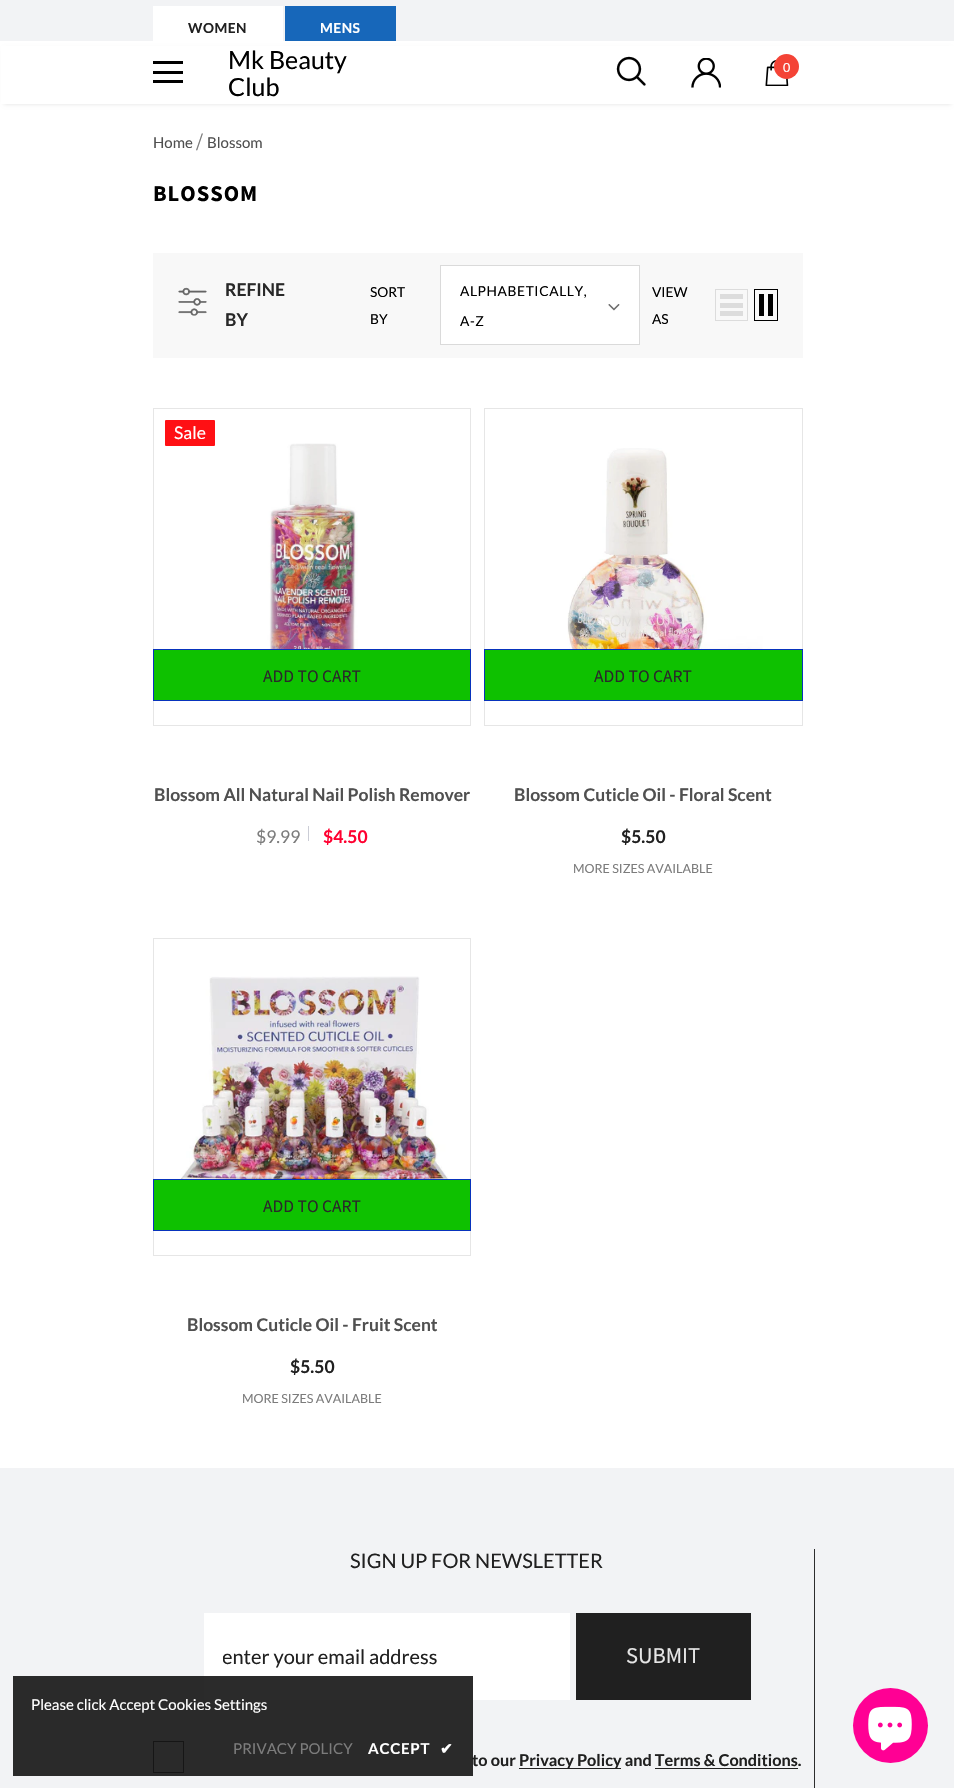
void draw(SkCanvas* canvas) {
	SkPaint fill;
	fill.setAntiAlias(true);
	auto makeFont = [&](const char* family, int weight, float size, bool italic = false) {
		SkFontStyle style(weight, SkFontStyle::kNormal_Width,
			italic ? SkFontStyle::kItalic_Slant : SkFontStyle::kUpright_Slant);
		SkFont result(fontMgr->matchFamilyStyle(family, style), size);
		result.setSubpixel(true);
		return result;
	};
	auto text = [&](const char* s, float x, float y, const SkFont& font) {
		canvas->drawString(s, x, y, font, fill);
	};
	auto spacedText = [&](const char* s, float x, float y, const SkFont& font, const SkPaint& ink, float letter, float word) {
		std::vector<SkGlyphID> glyphs(font.countText(s, strlen(s), SkTextEncoding::kUTF8));
		std::vector<float> xs(glyphs.size());
		font.textToGlyphs(s, strlen(s), SkTextEncoding::kUTF8, glyphs);
		font.getXPos(glyphs, xs, x);
		float extra = 0;
		for (size_t i = 0; i < glyphs.size(); i++) {
			xs[i] += extra;
			extra += letter + word * (glyphs[i] == font.unicharToGlyph(' '));
		}
		canvas->drawTextBlob(SkTextBlob::MakeFromPosHGlyphs(glyphs, xs, y, font), 0, 0, ink);
	};
	auto box = [&](float l, float t, float r, float b) {
		canvas->drawRect(SkRect::MakeLTRB(l, t, r, b), fill);
	};
	auto roundBox = [&](float l, float t, float r, float b, float radius) {
		canvas->drawRoundRect(SkRect::MakeLTRB(l, t, r, b), radius, radius, fill);
	};
	auto picture = [&](const char* path, float l, float t, float r, float b) {
		auto image = SkImages::DeferredFromEncodedData(SkData::MakeFromFileName(path));
		canvas->drawImageRect(image, SkRect::MakeLTRB(l, t, r, b), SkSamplingOptions());
	};
	canvas->clear(0xFFFFFFFF);
	fill.setColor(0xFFF2F3F5);
	box(0, 0, 954, 41);
	fill.setColor(0xFFFFFFFF);
	box(153, 6, 283, 41);
	fill.setColor(0xFF1767BA);
	box(285, 6, 396, 41);
	fill.setColor(0x1F000000);
	fill.setMaskFilter(SkMaskFilter::MakeBlur(kNormal_SkBlurStyle, 2));
	canvas->drawRect(SkRect::MakeLTRB(4, 49, 951, 104), fill);
	fill.setMaskFilter(nullptr);
	fill.setColor(0xFFFFFFFF);
	box(1, 46, 954, 104);
	fill.setColor(0xFF000000);
	box(153, 61, 183, 64);
	box(153, 71, 183, 74);
	box(153, 80, 183, 83);
	picture("image0.png", 616, 56, 646, 86);
	picture("image1.png", 691, 58, 721, 88);
	picture("image2.png", 765, 60, 789, 86);
	fill.setColor(0xFFF44336);
	canvas->drawCircle(786.5f, 66.5f, 12.5f, fill);
	fill.setColor(0xFFF8F8F8);
	box(153, 253, 803, 358);
	picture("image3.png", 178, 287, 207, 316);
	fill.setColor(0xFFFFFFFF);
	canvas->drawRect(SkRect::MakeLTRB(440.5f, 265.5f, 639.5f, 344.5f), fill);
	fill.setStyle(SkPaint::kStroke_Style);
	fill.setStrokeWidth(1);
	fill.setColor(0xFFDADADA);
	canvas->drawRect(SkRect::MakeLTRB(440.5f, 265.5f, 639.5f, 344.5f), fill);
	picture("image4.png", 608, 304, 620, 311);
	fill.setColor(0xFFDCDCDC);
	canvas->drawRect(SkRect::MakeLTRB(715.5f, 289.5f, 747.5f, 320.5f), fill);
	fill.setStyle(SkPaint::kFill_Style);
	box(720, 311, 743, 316);
	box(720, 303, 743, 308);
	box(720, 294, 743, 299);
	fill.setStyle(SkPaint::kStroke_Style);
	fill.setColor(0xFF000000);
	canvas->drawRect(SkRect::MakeLTRB(754.5f, 289.5f, 777.5f, 320.5f), fill);
	fill.setStyle(SkPaint::kFill_Style);
	box(768, 294, 773, 316);
	box(759, 294, 764, 316);
	fill.setStyle(SkPaint::kStroke_Style);
	fill.setColor(0xFFE6E6E6);
	canvas->drawRect(SkRect::MakeLTRB(153.5f, 408.5f, 470.5f, 725.5f), fill);
	picture("image5.png", 266, 443, 389, 649);
	fill.setStyle(SkPaint::kFill_Style);
	fill.setColor(0xFFFF1014);
	roundBox(165, 420, 215, 446, 1);
	fill.setColor(0xFF0EC100);
	canvas->drawRect(SkRect::MakeLTRB(153.5f, 649.5f, 470.5f, 700.5f), fill);
	fill.setStyle(SkPaint::kStroke_Style);
	fill.setColor(0xFF0833BC);
	canvas->drawRect(SkRect::MakeLTRB(153.5f, 649.5f, 470.5f, 700.5f), fill);
	fill.setStyle(SkPaint::kFill_Style);
	fill.setColor(0xFFCBCDD6);
	box(308, 826, 309, 841);
	fill.setStyle(SkPaint::kStroke_Style);
	fill.setColor(0xFFE6E6E6);
	canvas->drawRect(SkRect::MakeLTRB(484.5f, 408.5f, 802.5f, 725.5f), fill);
	picture("image6.png", 567, 448, 763, 649);
	fill.setStyle(SkPaint::kFill_Style);
	fill.setColor(0xFF0EC100);
	canvas->drawRect(SkRect::MakeLTRB(484.5f, 649.5f, 802.5f, 700.5f), fill);
	fill.setStyle(SkPaint::kStroke_Style);
	fill.setColor(0xFF0833BC);
	canvas->drawRect(SkRect::MakeLTRB(484.5f, 649.5f, 802.5f, 700.5f), fill);
	fill.setColor(0xFFE6E6E6);
	canvas->drawRect(SkRect::MakeLTRB(153.5f, 938.5f, 470.5f, 1255.5f), fill);
	picture("image7.png", 180, 976, 452, 1179);
	fill.setStyle(SkPaint::kFill_Style);
	fill.setColor(0xFF0EC100);
	canvas->drawRect(SkRect::MakeLTRB(153.5f, 1179.5f, 470.5f, 1230.5f), fill);
	fill.setStyle(SkPaint::kStroke_Style);
	fill.setColor(0xFF0833BC);
	canvas->drawRect(SkRect::MakeLTRB(153.5f, 1179.5f, 470.5f, 1230.5f), fill);
	fill.setStyle(SkPaint::kFill_Style);
	fill.setColor(0xFFF2F3F5);
	box(0, 1468, 954, 1788);
	fill.setColor(0xFF2D2D2D);
	box(814, 1549, 815, 1788);
	fill.setColor(0xFFFFFFFF);
	box(204, 1613, 570, 1700);
	fill.setColor(0xFF202020);
	box(576, 1613, 751, 1700);
	fill.setStyle(SkPaint::kStroke_Style);
	canvas->drawRect(SkRect::MakeLTRB(153.5f, 1741.5f, 183.5f, 1772.5f), fill);
	fill.setStyle(SkPaint::kFill_Style);
	box(519, 1768, 621, 1769);
	box(655, 1768, 798, 1769);
	fill.setColor(0xFFFF0094);
	canvas->drawCircle(890.5f, 1725.5f, 37.5f, fill);
	picture("image8.png", 868, 1706, 912, 1751);
	auto font1 = makeFont("Lato", 700, 13.75f);
	fill.setColor(0xFF202020);
	spacedText("WOMEN", 188, 33, font1, fill, 0.5f, 0);
	fill.setColor(0xFFFFFFFF);
	spacedText("MENS", 320, 33, font1, fill, 0.5f, 0);
	auto font2 = makeFont("Lato", 400, 25);
	fill.setColor(0xFF000000);
	text("Mk Beauty", 228, 69, font2);
	text("Club", 228, 96, font2);
	auto font3 = makeFont("Lato", 400, 12.5f);
	fill.setColor(0xFFFFFFFF);
	text("0", 783, 72, font3);
	auto font4 = makeFont("Lato", 400, 15);
	fill.setColor(0xFF505050);
	text("Home", 153, 148, font4);
	auto font5 = makeFont("Liberation Serif", 400, 25);
	fill.setColor(0xFF7C7C7C);
	text("/", 196, 150, font5);
	fill.setColor(0xFF505050);
	text("Blossom", 207, 148, font4);
	auto font6 = makeFont("Source Sans Pro", 700, 22.5f);
	fill.setColor(0xFF000000);
	spacedText("BLOSSOM", 153, 201, font6, fill, 1, 0);
	auto font7 = makeFont("Lato", 700, 17.5f);
	fill.setColor(0xFF292929);
	text("REFINE", 225, 296, font7);
	text("BY", 225, 326, font7);
	auto font8 = makeFont("Lato", 400, 13.75f);
	fill.setColor(0xFF000000);
	text("SORT", 370, 297, font8);
	text("BY", 370, 324, font8);
	spacedText("ALPHABETICALLY,", 460, 296, font8, fill, 0.6f, 0);
	spacedText("A-Z", 460, 326, font8, fill, 0.6f, 0);
	text("VIEW", 652, 297, font8);
	text("AS", 652, 324, font8);
	auto font9 = makeFont("Lato", 400, 17.5f);
	fill.setColor(0xFFFFFFFF);
	text("Sale", 174, 439, font9);
	auto font10 = makeFont("Source Sans Pro", 400, 17.5f);
	fill.setColor(0xFF292929);
	text("ADD TO CART", 263, 682, font10);
	fill.setColor(0xFF505050);
	text("Blossom All Natural Nail Polish Remover", 154, 801, font7);
	fill.setColor(0xFF7C7C7C);
	text("$9.99", 256, 843, font9);
	fill.setColor(0xFFFF0030);
	text("$4.50", 323, 843, font7);
	fill.setColor(0xFF292929);
	text("ADD TO CART", 594, 682, font10);
	fill.setColor(0xFF505050);
	text("Blossom Cuticle Oil - Floral Scent", 514, 801, font7);
	fill.setColor(0xFF202020);
	text("$5.50", 621, 843, font7);
	fill.setColor(0xFF7C7C7C);
	text("MORE SIZES AVAILABLE", 573, 873, font3);
	fill.setColor(0xFF292929);
	text("ADD TO CART", 263, 1212, font10);
	fill.setColor(0xFF505050);
	text("Blossom Cuticle Oil - Fruit Scent", 187, 1331, font7);
	fill.setColor(0xFF202020);
	text("$5.50", 290, 1373, font7);
	fill.setColor(0xFF7C7C7C);
	text("MORE SIZES AVAILABLE", 242, 1403, font3);
	auto font11 = makeFont("Lato", 400, 20);
	fill.setColor(0xFF202020);
	text("SIGN UP FOR NEWSLETTER", 350, 1568, font11);
	canvas->save();
	canvas->clipRect(SkRect::MakeLTRB(223, 1645, 551, 1669));
	text("enter your email address", 222, 1664, font11);
	canvas->restore();
	auto font12 = makeFont("Source Sans Pro", 400, 22.5f);
	fill.setColor(0xFFE6E6E6);
	text("SUBMIT", 626, 1663, font12);
	auto font13 = makeFont("Lato", 700, 16.25f);
	fill.setColor(0xFF202020);
	text("to our", 472, 1766, font13);
	text("Privacy Policy and Terms & Conditions.", 519, 1766, font13);
	fill.setColor(0xE6141414);
	box(13, 1676, 473, 1776);
	fill.setColor(0xFFFFFFFF);
	text("Please click Accept Cookies Settings", 31, 1710, font4);
	fill.setColor(0xFF7C7C7C);
	text("PRIVACY POLICY", 233, 1754, font4);
	auto font14 = makeFont("Lato", 700, 15);
	fill.setColor(0xFFFFFFFF);
	spacedText("ACCEPT", 368, 1754, font14, fill, 0.75f, 0);
	auto font15 = makeFont("DejaVu Sans", 700, 15);
	spacedText("✔", 440, 1754, font15, fill, 0.75f, 0);
}
